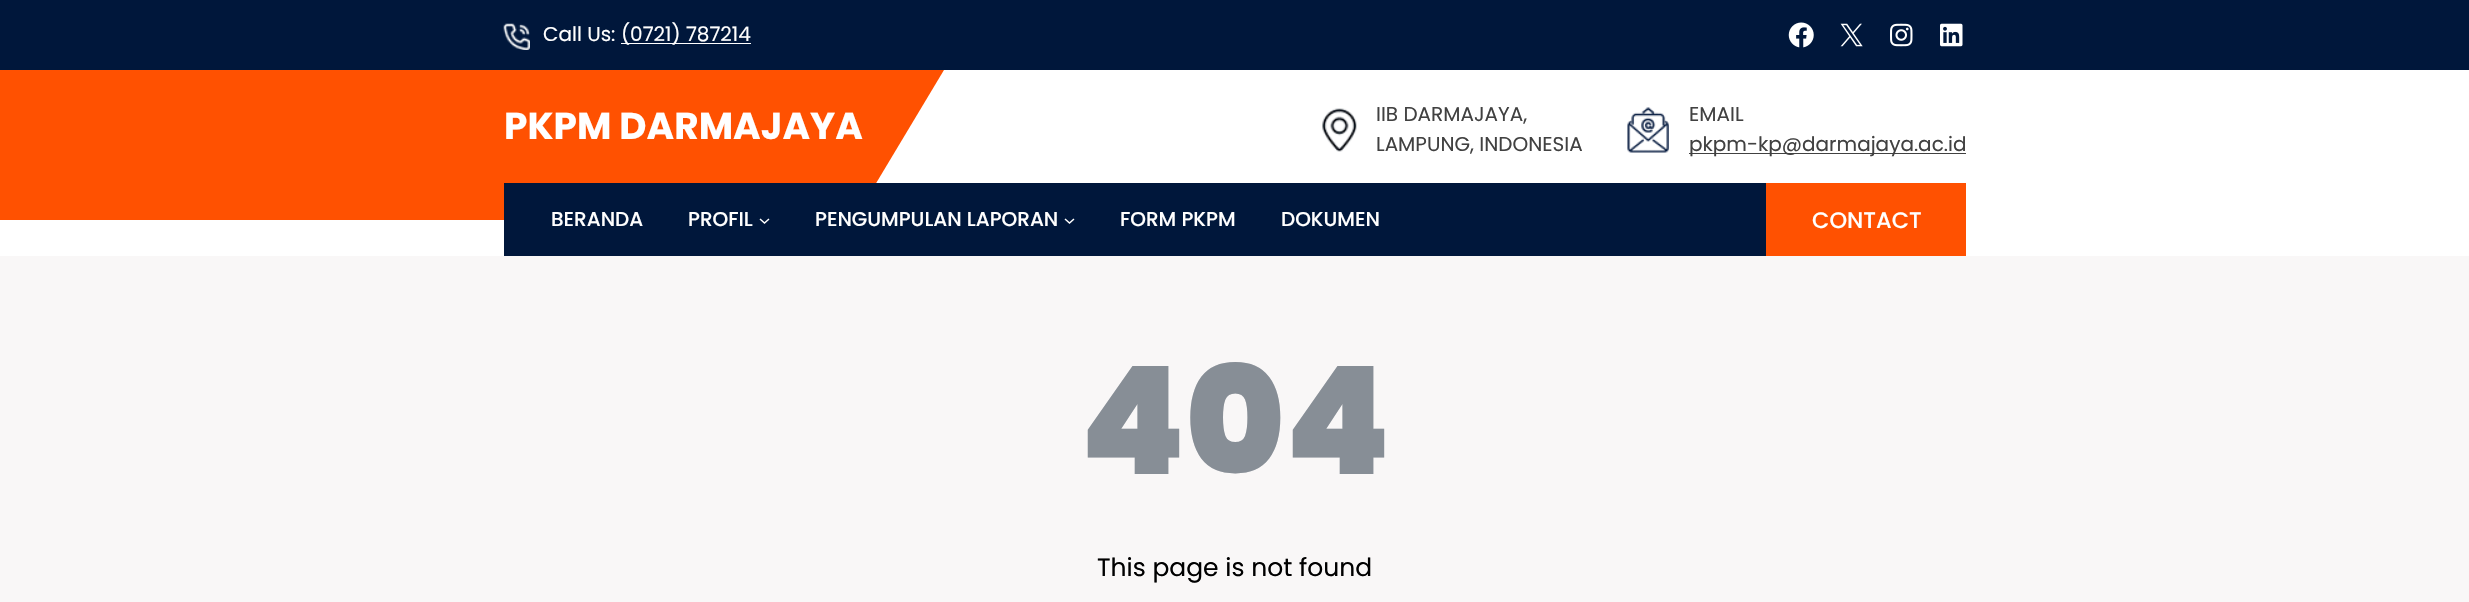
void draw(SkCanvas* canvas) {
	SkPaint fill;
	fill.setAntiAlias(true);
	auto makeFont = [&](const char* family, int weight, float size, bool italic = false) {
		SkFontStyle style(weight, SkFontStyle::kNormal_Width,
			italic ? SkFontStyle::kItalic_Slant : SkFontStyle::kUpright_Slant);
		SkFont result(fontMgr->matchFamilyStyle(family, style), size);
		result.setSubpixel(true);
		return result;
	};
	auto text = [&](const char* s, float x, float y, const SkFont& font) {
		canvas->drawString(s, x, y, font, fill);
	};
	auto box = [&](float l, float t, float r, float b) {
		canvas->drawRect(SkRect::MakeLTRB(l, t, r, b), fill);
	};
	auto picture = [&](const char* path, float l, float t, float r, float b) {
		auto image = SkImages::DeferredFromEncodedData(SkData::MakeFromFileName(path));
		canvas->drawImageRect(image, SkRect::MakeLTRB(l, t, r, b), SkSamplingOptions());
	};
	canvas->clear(0xFFFFFFFF);
	fill.setColor(0xFF00173B);
	box(0, 0, 2469, 70);
	picture("image0.png", 503, 23, 530, 50);
	fill.setColor(0xFFFFFFFF);
	box(621, 43, 751, 44);
	picture("image1.png", 1788, 22, 1814, 48);
	picture("image2.png", 1840, 23, 1863, 47);
	picture("image3.png", 1890, 23, 1913, 47);
	picture("image4.png", 1940, 23, 1963, 47);
	fill.setColor(0xFFFF5101);
	box(504, 70, 869, 183);
	box(0, 70, 504, 220);
	canvas->drawPath(SkPathBuilder().moveTo(869, 70).lineTo(944, 70).lineTo(869, 195).close().detach(), fill);
	picture("image5.png", 1322, 108, 1357, 152);
	picture("image6.png", 1627, 107, 1669, 153);
	fill.setColor(0xFF414141);
	box(1689, 153, 1966, 154);
	fill.setColor(0xFF00173B);
	box(504, 183, 1766, 256);
	fill.setStyle(SkPaint::kStroke_Style);
	fill.setStrokeWidth(1.5f);
	fill.setColor(0xFFFFFFFF);
	canvas->drawPath(SkPathBuilder().moveTo(760, 219).lineTo(764.5f, 223).lineTo(769, 219).detach(), fill);
	canvas->drawPath(SkPathBuilder().moveTo(1065, 219).lineTo(1069.5f, 223).lineTo(1074, 219).detach(), fill);
	fill.setStyle(SkPaint::kFill_Style);
	fill.setColor(0xFFFF5101);
	box(1766, 183, 1966, 256);
	fill.setColor(0xFFF9F7F7);
	box(0, 256, 2469, 602);
	auto font1 = makeFont("Poppins", 400, 20);
	fill.setColor(0xFFFFFFFF);
	text("Call Us:", 543, 41, font1);
	text("(0721) 787214", 621, 41, font1);
	auto font2 = makeFont("Poppins", 700, 37.5f);
	text("PKPM DARMAJAYA", 504, 139, font2);
	fill.setColor(0xFF414141);
	text("IIB DARMAJAYA,", 1376, 121, font1);
	text("LAMPUNG, INDONESIA", 1376, 151, font1);
	text("EMAIL", 1689, 121, font1);
	text("pkpm-kp@darmajaya.ac.id", 1689, 151, font1);
	auto font3 = makeFont("Poppins", 500, 20);
	fill.setColor(0xFFFFFFFF);
	text("BERANDA", 551, 226, font3);
	text("PROFIL", 688, 226, font3);
	text("PENGUMPULAN LAPORAN", 815, 226, font3);
	text("FORM PKPM", 1120, 226, font3);
	text("DOKUMEN", 1281, 226, font3);
	auto font4 = makeFont("Poppins", 500, 22.5f);
	text("CONTACT", 1812, 228, font4);
	auto font5 = makeFont("Poppins", 900, 150);
	fill.setColor(0xFF878E96);
	text("404", 1080, 474, font5);
	auto font6 = makeFont("Poppins", 400, 25);
	fill.setColor(0xFF000000);
	text("This page is not found", 1097, 576, font6);
}
